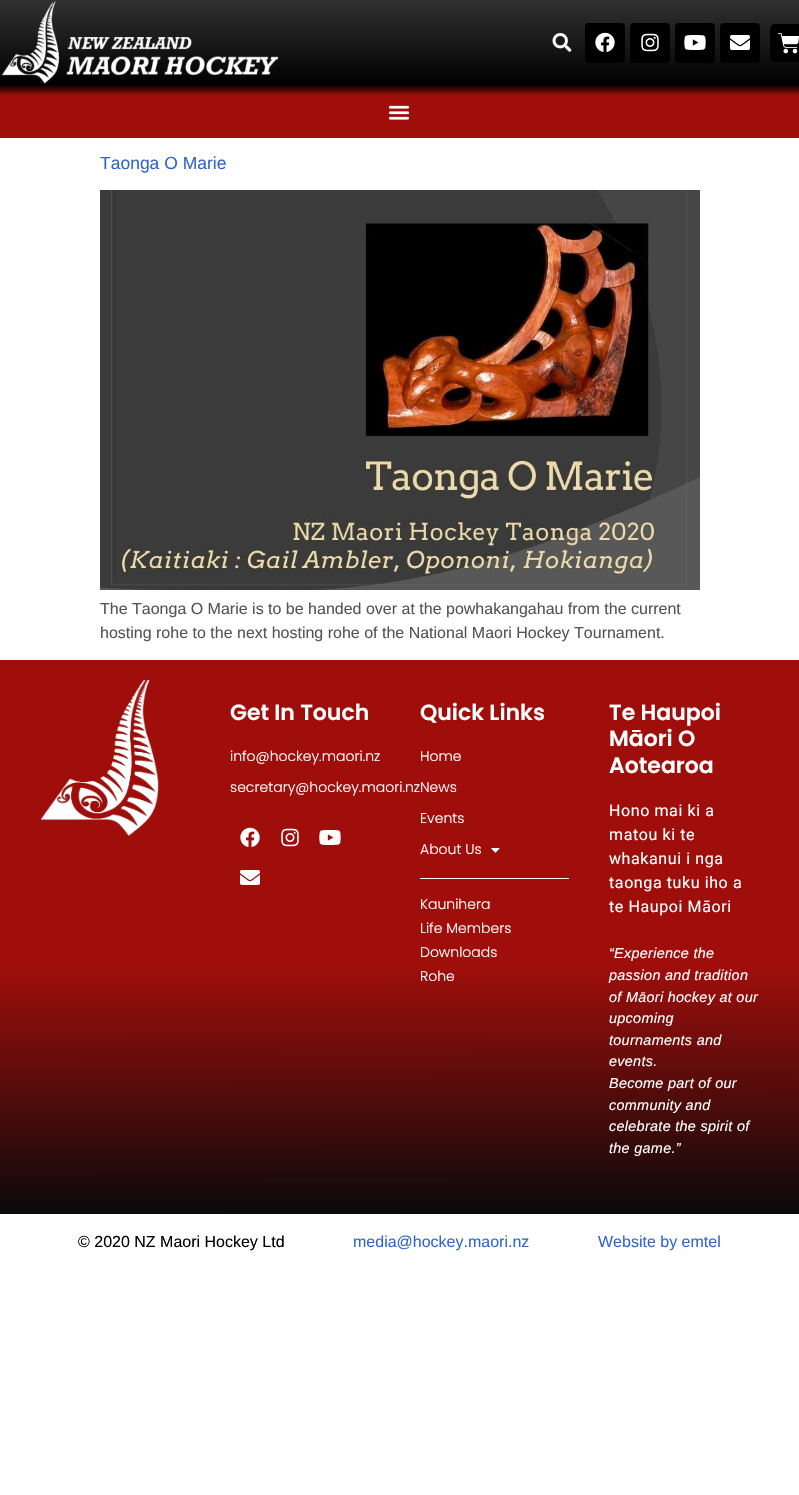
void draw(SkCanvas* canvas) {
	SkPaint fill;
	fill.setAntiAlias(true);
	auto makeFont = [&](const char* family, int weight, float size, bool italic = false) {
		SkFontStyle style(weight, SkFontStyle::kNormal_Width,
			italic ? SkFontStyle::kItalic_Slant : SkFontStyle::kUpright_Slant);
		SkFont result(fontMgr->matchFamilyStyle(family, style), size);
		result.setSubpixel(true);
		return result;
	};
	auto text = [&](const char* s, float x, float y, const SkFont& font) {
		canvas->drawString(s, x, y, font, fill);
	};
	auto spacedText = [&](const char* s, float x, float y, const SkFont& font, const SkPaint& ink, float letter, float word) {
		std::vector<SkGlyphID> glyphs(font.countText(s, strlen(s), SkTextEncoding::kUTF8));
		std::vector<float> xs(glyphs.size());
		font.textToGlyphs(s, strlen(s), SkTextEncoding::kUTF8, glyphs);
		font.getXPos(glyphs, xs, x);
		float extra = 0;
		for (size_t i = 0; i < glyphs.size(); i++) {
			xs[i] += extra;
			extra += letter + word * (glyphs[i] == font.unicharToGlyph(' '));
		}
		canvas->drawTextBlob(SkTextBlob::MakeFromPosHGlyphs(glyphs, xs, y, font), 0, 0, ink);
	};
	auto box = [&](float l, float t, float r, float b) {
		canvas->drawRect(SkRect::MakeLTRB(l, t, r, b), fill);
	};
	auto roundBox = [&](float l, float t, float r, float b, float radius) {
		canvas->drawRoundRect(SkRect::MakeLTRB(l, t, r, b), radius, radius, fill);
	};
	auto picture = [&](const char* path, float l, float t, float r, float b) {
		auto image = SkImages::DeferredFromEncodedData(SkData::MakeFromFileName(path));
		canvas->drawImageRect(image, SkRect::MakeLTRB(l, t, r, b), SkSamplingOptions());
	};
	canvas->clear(0xFFFFFFFF);
	{
		const SkColor colors[] = {0xFF323131, 0xFF000000};
		const float stops[] = {0, 1};
		const SkPoint ends[] = {{400, 0}, {400, 85}};
		fill.setShader(SkGradientShader::MakeLinear(ends, colors, stops, 2, SkTileMode::kClamp));
		fill.setAlpha(255);
	}
	box(0, 0, 799, 85);
	picture("image0.png", 1, 1, 279, 84);
	picture("image1.png", 552, 33, 572, 52);
	fill.setShader(nullptr);
	fill.setColor(0xFF000000);
	roundBox(585, 23, 625, 63, 4);
	picture("image2.png", 595, 32, 615, 52);
	roundBox(630, 23, 670, 63, 4);
	picture("image3.png", 641, 33, 659, 52);
	roundBox(675, 23, 715, 63, 4);
	picture("image4.png", 684, 35, 706, 50);
	roundBox(720, 23, 760, 63, 4);
	picture("image5.png", 730, 35, 750, 50);
	roundBox(770, 24, 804, 62, 5);
	picture("image6.png", 778, 33, 799, 54);
	{
		const SkColor colors[] = {0xFF030303, 0xFFA00E0B};
		const float stops[] = {0, 0.2f};
		const SkPoint ends[] = {{400, 85}, {400, 138}};
		fill.setShader(SkGradientShader::MakeLinear(ends, colors, stops, 2, SkTileMode::kClamp));
		fill.setAlpha(255);
	}
	box(0, 85, 799, 138);
	picture("image7.png", 388, 105, 410, 120);
	picture("image8.png", 100, 190, 700, 590);
	{
		const SkColor colors[] = {0xFFA00E0B, 0xFF0A0A0A};
		const float stops[] = {0.55f, 1};
		const SkPoint ends[] = {{399, 660}, {400, 1214}};
		fill.setShader(SkGradientShader::MakeLinear(ends, colors, stops, 2, SkTileMode::kClamp));
		fill.setAlpha(255);
	}
	box(0, 660, 799, 1214);
	picture("image9.png", 41, 680, 159, 836);
	picture("image10.png", 240, 827, 260, 847);
	picture("image11.png", 281, 828, 299, 847);
	picture("image12.png", 319, 830, 341, 845);
	picture("image13.png", 240, 870, 260, 885);
	picture("image14.png", 491, 848, 500, 853);
	fill.setShader(nullptr);
	fill.setColor(0xFFFFFFFF);
	box(420, 878, 569, 879);
	auto font1 = makeFont("Liberation Sans", 400, 17.5f);
	fill.setColor(0xFF3366CC);
	text("Taonga O Marie", 100, 169, font1);
	auto font2 = makeFont("Liberation Sans", 400, 16);
	fill.setColor(0xFF545454);
	text("The Taonga O Marie is to be handed over at the powhakangahau from the current", 100, 614, font2);
	text("hosting rohe to the next hosting rohe of the National Maori Hockey Tournament.", 100, 638, font2);
	auto font3 = makeFont("Poppins", 600, 22);
	fill.setColor(0xFFFFFFFF);
	text("Get In Touch", 230, 720, font3);
	auto font4 = makeFont("Poppins", 300, 14);
	text("info@hockey.maori.nz", 230, 761, font4);
	text("secretary@hockey.maori.nzNews", 230, 792, font4);
	text("Quick Links", 420, 720, font3);
	text("Home", 420, 761, font4);
	text("Events", 420, 823, font4);
	text("About Us", 420, 854, font4);
	text("Kaunihera", 420, 909, font4);
	text("Life Members", 420, 933, font4);
	text("Downloads", 420, 957, font4);
	text("Rohe", 420, 981, font4);
	text("Te Haupoi", 609, 720, font3);
	text("Māori O", 609, 746, font3);
	text("Aotearoa", 609, 773, font3);
	auto font5 = makeFont("Roboto", 400, 16);
	spacedText("Hono mai ki a", 609, 816, font5, fill, 0.6f, 0);
	spacedText("matou ki te", 609, 840, font5, fill, 0.6f, 0);
	spacedText("whakanui i nga", 609, 864, font5, fill, 0.6f, 0);
	spacedText("taonga tuku iho a", 609, 888, font5, fill, 0.6f, 0);
	spacedText("te Haupoi Māori", 609, 912, font5, fill, 0.6f, 0);
	auto font6 = makeFont("Liberation Sans", 400, 14.4f, true);
	spacedText("“Experience the", 609, 958, font6, fill, 0.3f, 0);
	spacedText("passion and tradition", 609, 980, font6, fill, 0.3f, 0);
	spacedText("of Māori hockey at our", 609, 1002, font6, fill, 0.3f, 0);
	spacedText("upcoming", 609, 1023, font6, fill, 0.3f, 0);
	spacedText("tournaments and", 609, 1045, font6, fill, 0.3f, 0);
	spacedText("events.", 609, 1066, font6, fill, 0.3f, 0);
	spacedText("Become part of our", 609, 1088, font6, fill, 0.3f, 0);
	spacedText("community and", 609, 1110, font6, fill, 0.3f, 0);
	spacedText("celebrate the spirit of", 609, 1131, font6, fill, 0.3f, 0);
	spacedText("the game.”", 609, 1153, font6, fill, 0.3f, 0);
	fill.setColor(0xFF000000);
	text("© 2020 NZ Maori Hockey Ltd", 78, 1247, font2);
	fill.setColor(0xFF3366CC);
	text("media@hockey.maori.nz", 353, 1247, font2);
	text("Website by emtel", 598, 1247, font2);
}
